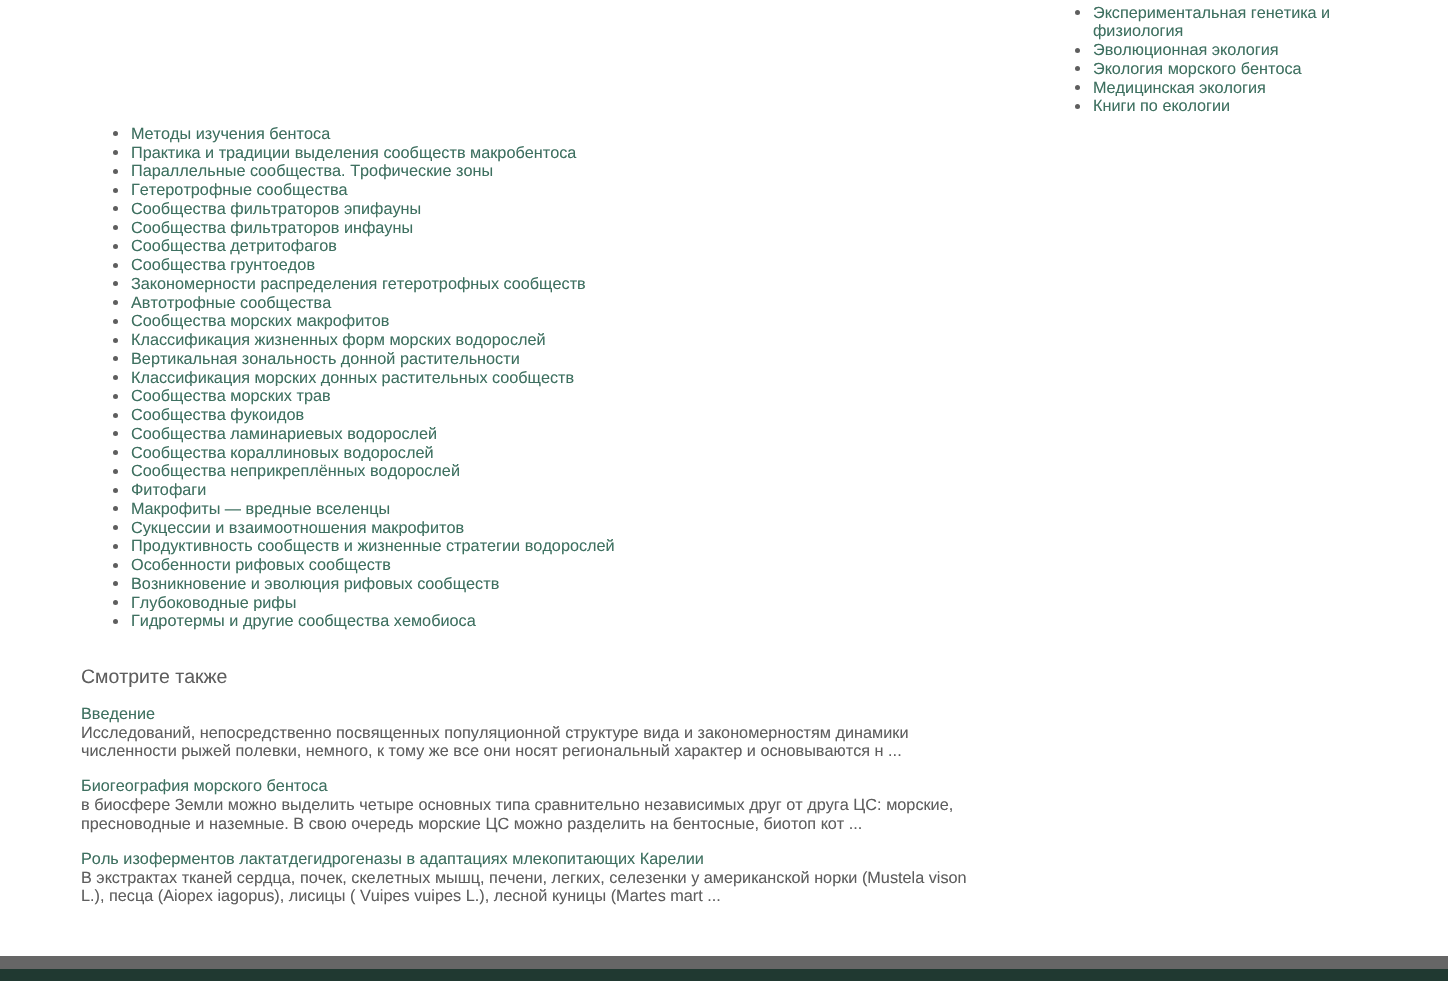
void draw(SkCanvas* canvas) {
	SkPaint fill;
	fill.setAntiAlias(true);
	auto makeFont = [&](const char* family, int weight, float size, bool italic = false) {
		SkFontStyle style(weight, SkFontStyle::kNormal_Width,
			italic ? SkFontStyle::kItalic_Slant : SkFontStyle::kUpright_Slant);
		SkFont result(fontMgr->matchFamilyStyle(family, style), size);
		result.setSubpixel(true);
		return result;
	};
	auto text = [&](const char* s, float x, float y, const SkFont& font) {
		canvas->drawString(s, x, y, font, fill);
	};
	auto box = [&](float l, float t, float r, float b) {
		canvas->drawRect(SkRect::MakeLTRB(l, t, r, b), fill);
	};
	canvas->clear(0xFFFFFFFF);
	fill.setColor(0xFF5E5E5E);
	canvas->drawCircle(1077.5f, 12.5f, 2.5f, fill);
	canvas->drawCircle(1077.5f, 50.5f, 2.5f, fill);
	canvas->drawCircle(1077.5f, 68.5f, 2.5f, fill);
	canvas->drawCircle(1077.5f, 87.5f, 2.5f, fill);
	canvas->drawCircle(1077.5f, 106.5f, 2.5f, fill);
	canvas->drawCircle(115.5f, 133.5f, 2.5f, fill);
	canvas->drawCircle(115.5f, 152.5f, 2.5f, fill);
	canvas->drawCircle(115.5f, 171.5f, 2.5f, fill);
	canvas->drawCircle(115.5f, 190.5f, 2.5f, fill);
	canvas->drawCircle(115.5f, 208.5f, 2.5f, fill);
	canvas->drawCircle(115.5f, 227.5f, 2.5f, fill);
	canvas->drawCircle(115.5f, 246.5f, 2.5f, fill);
	canvas->drawCircle(115.5f, 265.5f, 2.5f, fill);
	canvas->drawCircle(115.5f, 283.5f, 2.5f, fill);
	canvas->drawCircle(115.5f, 302.5f, 2.5f, fill);
	canvas->drawCircle(115.5f, 321.5f, 2.5f, fill);
	canvas->drawCircle(115.5f, 340.5f, 2.5f, fill);
	canvas->drawCircle(115.5f, 358.5f, 2.5f, fill);
	canvas->drawCircle(115.5f, 377.5f, 2.5f, fill);
	canvas->drawCircle(115.5f, 396.5f, 2.5f, fill);
	canvas->drawCircle(115.5f, 415.5f, 2.5f, fill);
	canvas->drawCircle(115.5f, 433.5f, 2.5f, fill);
	canvas->drawCircle(115.5f, 452.5f, 2.5f, fill);
	canvas->drawCircle(115.5f, 471.5f, 2.5f, fill);
	canvas->drawCircle(115.5f, 490.5f, 2.5f, fill);
	canvas->drawCircle(115.5f, 508.5f, 2.5f, fill);
	canvas->drawCircle(115.5f, 527.5f, 2.5f, fill);
	canvas->drawCircle(115.5f, 546.5f, 2.5f, fill);
	canvas->drawCircle(115.5f, 565.5f, 2.5f, fill);
	canvas->drawCircle(115.5f, 583.5f, 2.5f, fill);
	canvas->drawCircle(115.5f, 602.5f, 2.5f, fill);
	canvas->drawCircle(115.5f, 621.5f, 2.5f, fill);
	fill.setColor(0xFF203931);
	box(0, 969, 1448, 981);
	fill.setColor(0xFF666666);
	box(0, 956, 1448, 969);
	auto font1 = makeFont("Liberation Sans", 400, 16.25f);
	fill.setColor(0xFF3E7060);
	text("Экспериментальная генетика и", 1093, 18, font1);
	text("физиология", 1093, 36, font1);
	text("Эволюционная экология", 1093, 55, font1);
	text("Экология морского бентоса", 1093, 74, font1);
	text("Медицинская экология", 1093, 93, font1);
	text("Книги по екологии", 1093, 111, font1);
	fill.setColor(0xFFFFFFFF);
	box(1115, 96, 1144, 97);
	fill.setColor(0xFF3E7060);
	text("Методы изучения бентоса", 131, 139, font1);
	text("Практика и традиции выделения сообществ макробентоса", 131, 158, font1);
	text("Параллельные сообщества. Трофические зоны", 131, 176, font1);
	fill.setColor(0xFFFFFFFF);
	box(143, 161, 432, 162);
	fill.setColor(0xFF3E7060);
	text("Гетеротрофные сообщества", 131, 195, font1);
	text("Сообщества фильтраторов эпифауны", 131, 214, font1);
	text("Сообщества фильтраторов инфауны", 131, 233, font1);
	text("Сообщества детритофагов", 131, 251, font1);
	fill.setColor(0xFFFFFFFF);
	box(181, 236, 315, 237);
	fill.setColor(0xFF3E7060);
	text("Сообщества грунтоедов", 131, 270, font1);
	text("Закономерности распределения гетеротрофных сообществ", 131, 289, font1);
	text("Автотрофные сообщества", 131, 308, font1);
	text("Сообщества морских макрофитов", 131, 326, font1);
	fill.setColor(0xFFFFFFFF);
	box(175, 311, 289, 312);
	fill.setColor(0xFF3E7060);
	text("Классификация жизненных форм морских водорослей", 131, 345, font1);
	text("Вертикальная зональность донной растительности", 131, 364, font1);
	text("Классификация морских донных растительных сообществ", 131, 383, font1);
	text("Сообщества морских трав", 131, 401, font1);
	fill.setColor(0xFFFFFFFF);
	box(189, 386, 330, 387);
	fill.setColor(0xFF3E7060);
	text("Сообщества фукоидов", 131, 420, font1);
	text("Сообщества ламинариевых водорослей", 131, 439, font1);
	text("Сообщества кораллиновых водорослей", 131, 458, font1);
	text("Сообщества неприкреплённых водорослей", 131, 476, font1);
	fill.setColor(0xFFFFFFFF);
	box(181, 461, 382, 462);
	fill.setColor(0xFF3E7060);
	text("Фитофаги", 131, 495, font1);
	text("Макрофиты — вредные вселенцы", 131, 514, font1);
	text("Сукцессии и взаимоотношения макрофитов", 131, 533, font1);
	text("Продуктивность сообществ и жизненные стратегии водорослей", 131, 551, font1);
	fill.setColor(0xFFFFFFFF);
	box(142, 536, 424, 537);
	fill.setColor(0xFF3E7060);
	text("Особенности рифовых сообществ", 131, 570, font1);
	text("Возникновение и эволюция рифовых сообществ", 131, 589, font1);
	text("Глубоководные рифы", 131, 608, font1);
	text("Гидротермы и другие сообщества хемобиоса", 131, 626, font1);
	fill.setColor(0xFFFFFFFF);
	box(149, 611, 279, 612);
	auto font2 = makeFont("Liberation Sans", 400, 19.5f);
	fill.setColor(0xFF5E5E5E);
	text("Смотрите также", 81, 683, font2);
	fill.setColor(0xFF3E7060);
	text("Введение", 81, 719, font1);
	fill.setColor(0xFF5E5E5E);
	text("Исследований, непосредственно посвященных популяционной структуре вида и закономерностям динамики", 81, 738, font1);
	text("численности рыжей полевки, немного, к тому же все они носят региональный характер и основываются н ...", 81, 756, font1);
	fill.setColor(0xFF3E7060);
	text("Биогеография морского бентоса", 81, 791, font1);
	fill.setColor(0xFF5E5E5E);
	text("в биосфере Земли можно выделить четыре основных типа сравнительно независимых друг от друга ЦС: морские,", 81, 810, font1);
	text("пресноводные и наземные. В свою очередь морские ЦС можно разделить на бентосные, биотоп кот ...", 81, 829, font1);
	fill.setColor(0xFF3E7060);
	text("Роль изоферментов лактатдегидрогеназы в адаптациях млекопитающих Карелии", 81, 864, font1);
	fill.setColor(0xFF5E5E5E);
	text("В экстрактах тканей сердца, почек, скелетных мышц, печени, легких, селезенки у американской норки (Mustela vison", 81, 883, font1);
	text("L.), песца (Aiopex iagopus), лисицы ( Vuipes vuipes L.), лесной куницы (Martes mart ...", 81, 901, font1);
}
